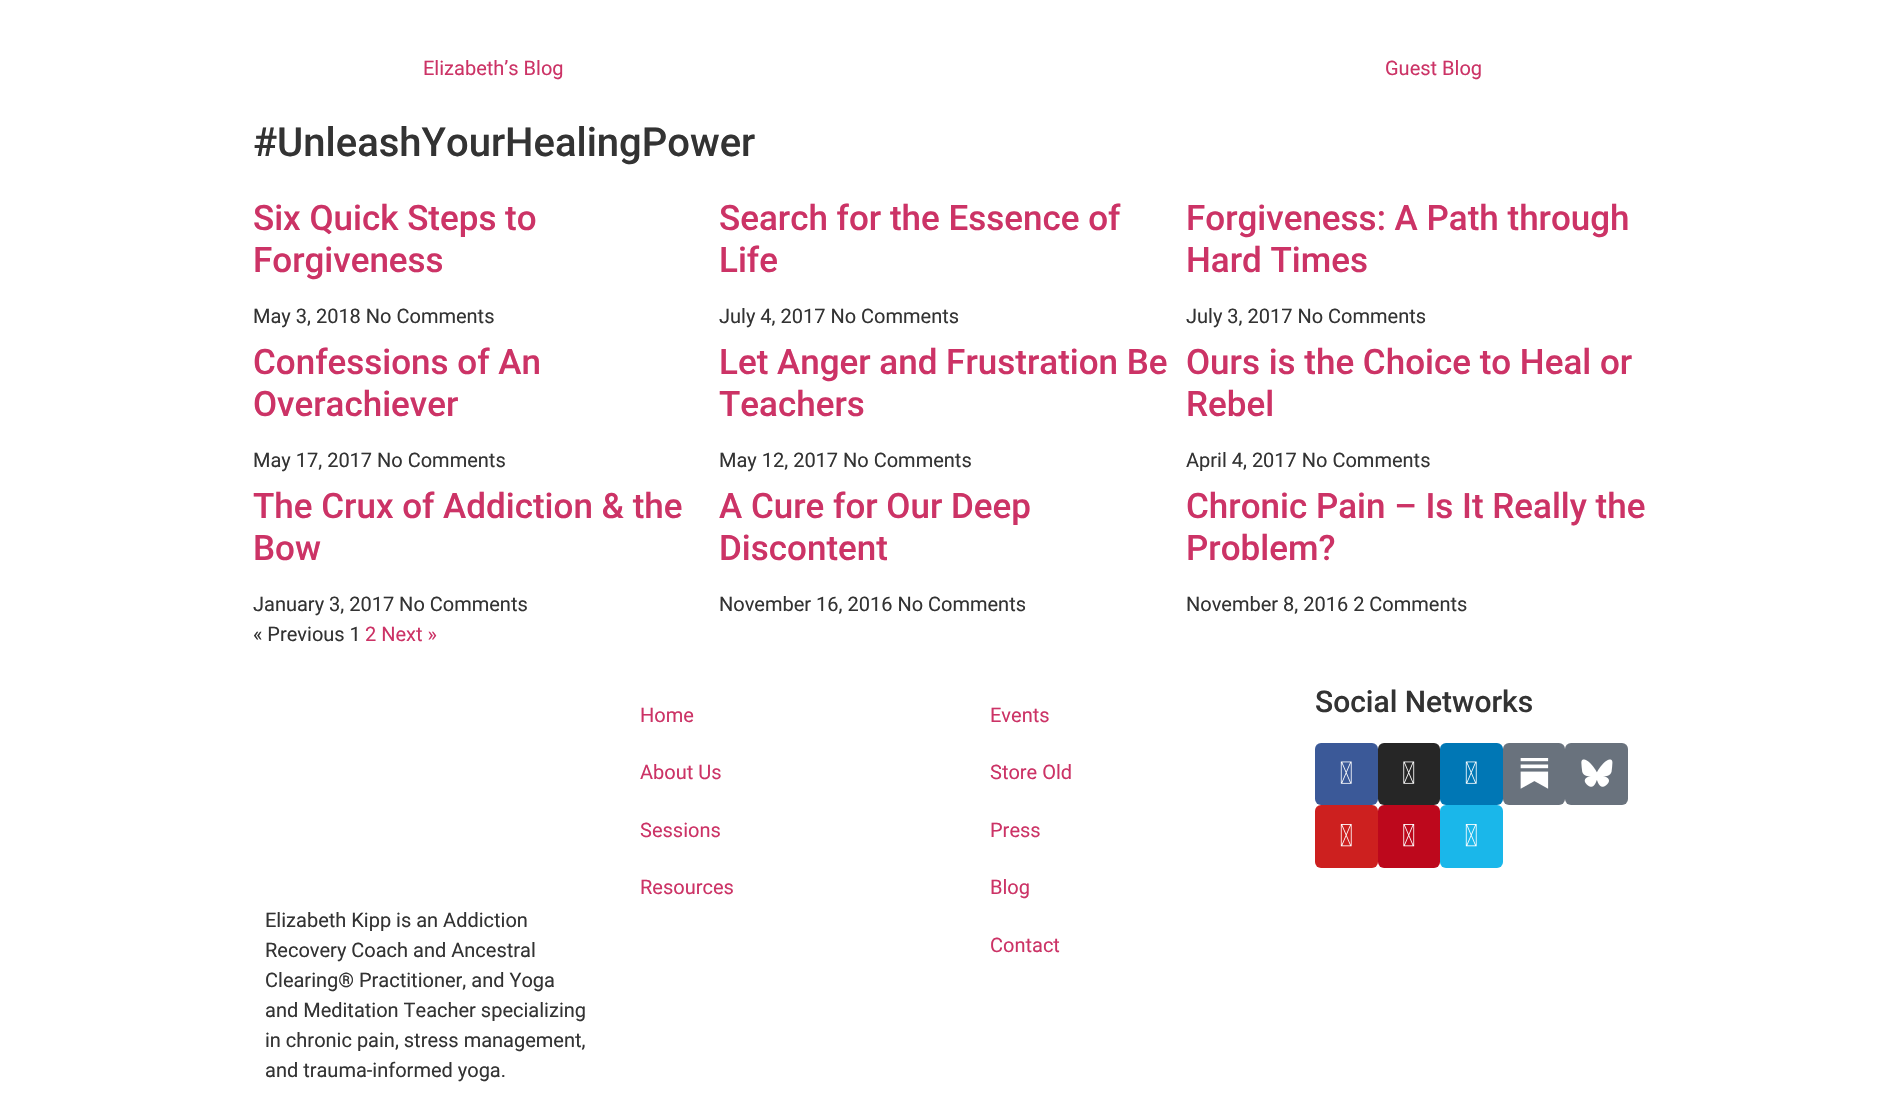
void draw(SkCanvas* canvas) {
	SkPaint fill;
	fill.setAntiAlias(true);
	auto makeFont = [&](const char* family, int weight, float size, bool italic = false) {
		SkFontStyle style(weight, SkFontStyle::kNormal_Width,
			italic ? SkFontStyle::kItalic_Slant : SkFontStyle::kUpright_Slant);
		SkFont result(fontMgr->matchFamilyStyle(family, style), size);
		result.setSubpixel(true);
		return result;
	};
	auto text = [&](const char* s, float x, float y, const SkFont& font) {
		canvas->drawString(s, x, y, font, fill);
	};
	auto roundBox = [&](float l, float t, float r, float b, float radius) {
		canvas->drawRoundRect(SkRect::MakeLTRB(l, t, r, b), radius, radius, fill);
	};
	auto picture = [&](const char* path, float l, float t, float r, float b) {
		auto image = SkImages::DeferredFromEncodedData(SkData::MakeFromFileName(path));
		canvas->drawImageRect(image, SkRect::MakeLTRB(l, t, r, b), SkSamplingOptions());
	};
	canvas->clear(0xFFFFFFFF);
	fill.setColor(0xFF3B5998);
	roundBox(1315, 743, 1378, 805, 6);
	picture("image0.png", 1340, 761, 1352, 784);
	fill.setColor(0xFF262626);
	roundBox(1378, 743, 1440, 805, 6);
	picture("image1.png", 1403, 761, 1415, 784);
	fill.setColor(0xFF0077B5);
	roundBox(1440, 743, 1503, 805, 6);
	picture("image2.png", 1465, 761, 1477, 784);
	fill.setColor(0xFF69727D);
	roundBox(1503, 743, 1565, 805, 6);
	picture("image3.png", 1520, 758, 1549, 789);
	roundBox(1565, 743, 1628, 805, 6);
	picture("image4.png", 1581, 759, 1613, 787);
	fill.setColor(0xFFCD201F);
	roundBox(1315, 805, 1378, 868, 6);
	picture("image5.png", 1340, 824, 1352, 847);
	fill.setColor(0xFFBD081C);
	roundBox(1378, 805, 1440, 868, 6);
	picture("image6.png", 1403, 824, 1415, 847);
	fill.setColor(0xFF1AB7EA);
	roundBox(1440, 805, 1503, 868, 6);
	picture("image7.png", 1465, 824, 1477, 847);
	auto font1 = makeFont("Roboto", 400, 20);
	fill.setColor(0xFFCC3366);
	text("Elizabeth’s Blog", 423, 75, font1);
	text("Guest Blog", 1385, 75, font1);
	auto font2 = makeFont("Roboto", 500, 40);
	fill.setColor(0xFF333333);
	text("#UnleashYourHealingPower", 253, 156, font2);
	auto font3 = makeFont("Roboto", 500, 35);
	fill.setColor(0xFFCC3366);
	text("Six Quick Steps to", 253, 230, font3);
	text("Forgiveness", 253, 272, font3);
	fill.setColor(0xFF333333);
	text("May 3, 2018 No Comments", 253, 323, font1);
	fill.setColor(0xFFCC3366);
	text("Search for the Essence of", 719, 230, font3);
	text("Life", 719, 272, font3);
	fill.setColor(0xFF333333);
	text("July 4, 2017 No Comments", 719, 323, font1);
	fill.setColor(0xFFCC3366);
	text("Forgiveness: A Path through", 1186, 230, font3);
	text("Hard Times", 1186, 272, font3);
	fill.setColor(0xFF333333);
	text("July 3, 2017 No Comments", 1186, 323, font1);
	fill.setColor(0xFFCC3366);
	text("Confessions of An", 253, 374, font3);
	text("Overachiever", 253, 416, font3);
	fill.setColor(0xFF333333);
	text("May 17, 2017 No Comments", 253, 467, font1);
	fill.setColor(0xFFCC3366);
	text("Let Anger and Frustration Be", 719, 374, font3);
	text("Teachers", 719, 416, font3);
	fill.setColor(0xFF333333);
	text("May 12, 2017 No Comments", 719, 467, font1);
	fill.setColor(0xFFCC3366);
	text("Ours is the Choice to Heal or", 1186, 374, font3);
	text("Rebel", 1186, 416, font3);
	fill.setColor(0xFF333333);
	text("April 4, 2017 No Comments", 1186, 467, font1);
	fill.setColor(0xFFCC3366);
	text("The Crux of Addiction & the", 253, 518, font3);
	text("Bow", 253, 560, font3);
	fill.setColor(0xFF333333);
	text("January 3, 2017 No Comments", 253, 611, font1);
	fill.setColor(0xFFCC3366);
	text("A Cure for Our Deep", 719, 518, font3);
	text("Discontent", 719, 560, font3);
	fill.setColor(0xFF333333);
	text("November 16, 2016 No Comments", 719, 611, font1);
	fill.setColor(0xFFCC3366);
	text("Chronic Pain – Is It Really the", 1186, 518, font3);
	text("Problem?", 1186, 560, font3);
	fill.setColor(0xFF333333);
	text("November 8, 2016 2 Comments", 1186, 611, font1);
	text("« Previous 1", 253, 641, font1);
	fill.setColor(0xFFCC3366);
	text("2 Next »", 365, 641, font1);
	auto font4 = makeFont("Roboto", 500, 30);
	fill.setColor(0xFF333333);
	text("Social Networks", 1315, 712, font4);
	fill.setColor(0xFFCC3366);
	text("Home", 640, 722, font1);
	text("About Us", 640, 779, font1);
	text("Sessions", 640, 837, font1);
	text("Resources", 640, 894, font1);
	text("Events", 990, 722, font1);
	text("Store Old", 990, 779, font1);
	text("Press", 990, 837, font1);
	text("Blog", 990, 894, font1);
	text("Contact", 990, 952, font1);
	fill.setColor(0xFF333333);
	text("Elizabeth Kipp is an Addiction", 265, 927, font1);
	text("Recovery Coach and Ancestral", 265, 957, font1);
	text("Clearing® Practitioner, and Yoga", 265, 987, font1);
	text("and Meditation Teacher specializing", 265, 1017, font1);
	text("in chronic pain, stress management,", 265, 1047, font1);
	text("and trauma-informed yoga.", 265, 1077, font1);
}
